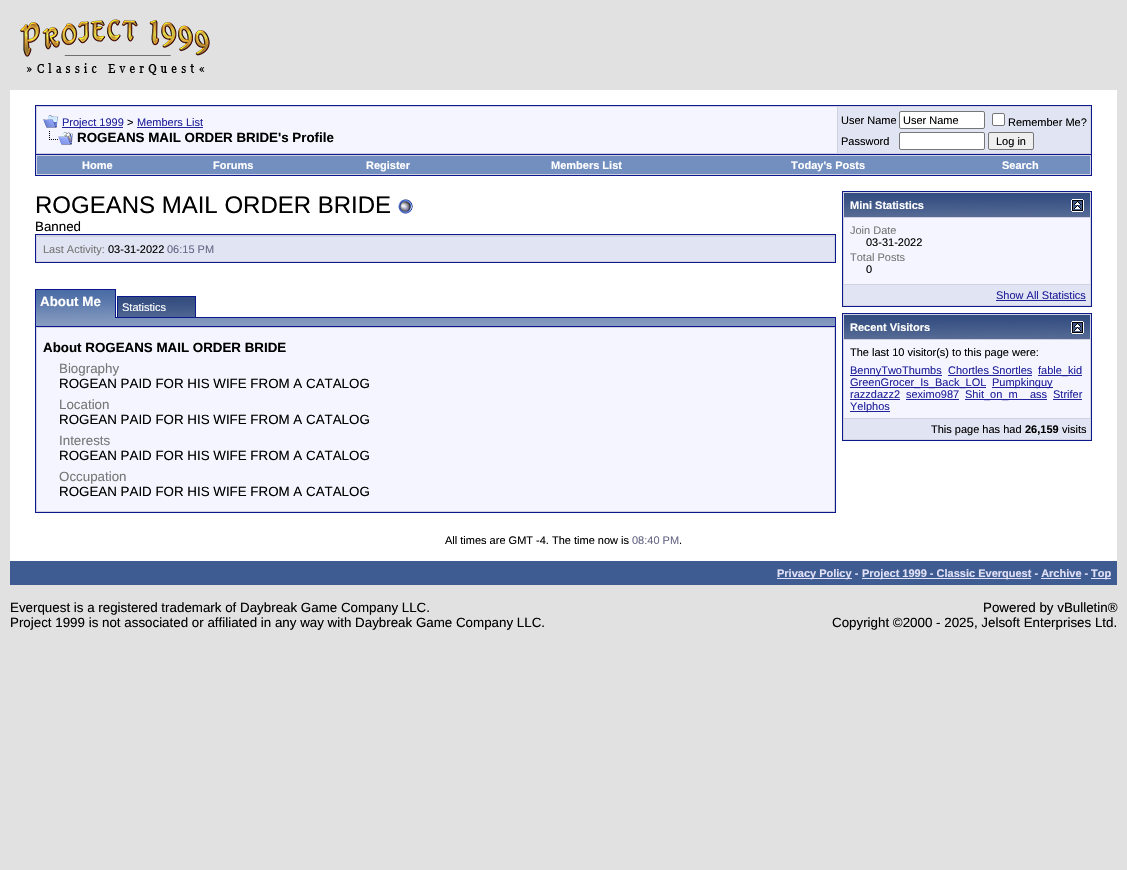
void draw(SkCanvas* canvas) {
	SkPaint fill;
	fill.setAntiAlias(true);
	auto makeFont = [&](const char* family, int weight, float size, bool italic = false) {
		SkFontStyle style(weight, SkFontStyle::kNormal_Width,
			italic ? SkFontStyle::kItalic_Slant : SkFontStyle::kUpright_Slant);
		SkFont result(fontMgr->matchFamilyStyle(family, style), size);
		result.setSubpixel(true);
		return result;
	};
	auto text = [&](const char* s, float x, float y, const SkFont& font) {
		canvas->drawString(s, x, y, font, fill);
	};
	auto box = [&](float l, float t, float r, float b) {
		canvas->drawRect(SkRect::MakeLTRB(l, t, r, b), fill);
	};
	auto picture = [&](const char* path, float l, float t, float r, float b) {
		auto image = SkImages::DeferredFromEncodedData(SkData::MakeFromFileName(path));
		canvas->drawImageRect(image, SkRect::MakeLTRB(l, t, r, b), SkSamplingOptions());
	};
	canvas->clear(0xFFE1E1E2);
	picture("image0.png", 20, 19, 210, 75);
	fill.setColor(0xFFFFFFFF);
	box(10, 90, 1117, 561);
	fill.setColor(0xFFD1D1E1);
	canvas->drawRect(SkRect::MakeLTRB(35.5f, 105.5f, 1091.5f, 154.5f), fill);
	fill.setStyle(SkPaint::kStroke_Style);
	fill.setStrokeWidth(1);
	fill.setColor(0xFF0B198C);
	canvas->drawRect(SkRect::MakeLTRB(35.5f, 105.5f, 1091.5f, 154.5f), fill);
	fill.setStyle(SkPaint::kFill_Style);
	fill.setColor(0xFFF5F5FF);
	box(37, 107, 837, 153);
	picture("image1.png", 43, 115, 58, 128);
	fill.setColor(0xFF22229C);
	box(62, 127, 123, 128);
	box(137, 127, 203, 128);
	picture("image2.png", 49, 131, 73, 145);
	fill.setColor(0xFFE1E4F2);
	box(838, 107, 1090, 153);
	fill.setColor(0xFFFFFFFF);
	canvas->drawRoundRect(SkRect::MakeLTRB(899.5f, 111.5f, 984.5f, 128.5f), 1.5f, 1.5f, fill);
	fill.setStyle(SkPaint::kStroke_Style);
	fill.setColor(0xFF767676);
	canvas->drawRoundRect(SkRect::MakeLTRB(899.5f, 111.5f, 984.5f, 128.5f), 1.5f, 1.5f, fill);
	fill.setStyle(SkPaint::kFill_Style);
	fill.setColor(0xFFFFFFFF);
	canvas->drawRoundRect(SkRect::MakeLTRB(992.5f, 113.5f, 1004.5f, 125.5f), 1.5f, 1.5f, fill);
	fill.setStyle(SkPaint::kStroke_Style);
	fill.setColor(0xFF767676);
	canvas->drawRoundRect(SkRect::MakeLTRB(992.5f, 113.5f, 1004.5f, 125.5f), 1.5f, 1.5f, fill);
	fill.setStyle(SkPaint::kFill_Style);
	fill.setColor(0xFFFFFFFF);
	canvas->drawRoundRect(SkRect::MakeLTRB(899.5f, 132.5f, 984.5f, 149.5f), 1.5f, 1.5f, fill);
	fill.setStyle(SkPaint::kStroke_Style);
	fill.setColor(0xFF767676);
	canvas->drawRoundRect(SkRect::MakeLTRB(899.5f, 132.5f, 984.5f, 149.5f), 1.5f, 1.5f, fill);
	fill.setStyle(SkPaint::kFill_Style);
	fill.setColor(0xFFEFEFEF);
	canvas->drawRoundRect(SkRect::MakeLTRB(988.5f, 132.5f, 1033.5f, 149.5f), 1.5f, 1.5f, fill);
	fill.setStyle(SkPaint::kStroke_Style);
	fill.setColor(0xFF767676);
	canvas->drawRoundRect(SkRect::MakeLTRB(988.5f, 132.5f, 1033.5f, 149.5f), 1.5f, 1.5f, fill);
	fill.setStyle(SkPaint::kFill_Style);
	fill.setColor(0xFFD1D1E1);
	box(36, 155, 1091, 175);
	fill.setColor(0xFF0B198C);
	box(1091, 155, 1092, 176);
	box(35, 175, 1092, 176);
	box(35, 155, 36, 176);
	fill.setColor(0xFF738FBF);
	box(37, 156, 1090, 174);
	picture("image3.png", 398, 199, 413, 214);
	fill.setColor(0xFFD1D1E1);
	canvas->drawRect(SkRect::MakeLTRB(35.5f, 234.5f, 835.5f, 262.5f), fill);
	fill.setStyle(SkPaint::kStroke_Style);
	fill.setColor(0xFF0B198C);
	canvas->drawRect(SkRect::MakeLTRB(35.5f, 234.5f, 835.5f, 262.5f), fill);
	fill.setStyle(SkPaint::kFill_Style);
	fill.setColor(0xFFE1E4F2);
	box(37, 237, 834, 261);
	picture("image4.png", 36, 290, 115, 318);
	fill.setColor(0xFF0B198C);
	box(35, 289, 116, 290);
	box(115, 289, 116, 318);
	box(35, 317, 36, 326);
	box(35, 289, 36, 318);
	picture("image5.png", 118, 297, 195, 317);
	box(116, 317, 836, 318);
	fill.setStyle(SkPaint::kStroke_Style);
	canvas->drawRect(SkRect::MakeLTRB(117.5f, 296.5f, 195.5f, 317.5f), fill);
	fill.setStyle(SkPaint::kFill_Style);
	fill.setColor(0xFF869BBF);
	box(36, 323, 835, 326);
	picture("image6.png", 36, 318, 835, 323);
	fill.setColor(0xFF0B198C);
	box(835, 317, 836, 326);
	fill.setColor(0xFFD1D1E1);
	canvas->drawRect(SkRect::MakeLTRB(35.5f, 326.5f, 835.5f, 512.5f), fill);
	fill.setStyle(SkPaint::kStroke_Style);
	fill.setColor(0xFF0B198C);
	canvas->drawRect(SkRect::MakeLTRB(35.5f, 326.5f, 835.5f, 512.5f), fill);
	fill.setStyle(SkPaint::kFill_Style);
	fill.setColor(0xFFF5F5FF);
	box(37, 328, 834, 511);
	fill.setColor(0xFFD1D1E1);
	canvas->drawRect(SkRect::MakeLTRB(842.5f, 191.5f, 1091.5f, 306.5f), fill);
	fill.setStyle(SkPaint::kStroke_Style);
	fill.setColor(0xFF0B198C);
	canvas->drawRect(SkRect::MakeLTRB(842.5f, 191.5f, 1091.5f, 306.5f), fill);
	picture("image7.png", 844, 193, 1090, 217);
	picture("image8.png", 1071, 199, 1084, 212);
	fill.setStyle(SkPaint::kFill_Style);
	fill.setColor(0xFFF5F5FF);
	box(844, 218, 1090, 284);
	fill.setColor(0xFFE1E4F2);
	box(844, 285, 1090, 305);
	fill.setColor(0xFF22229C);
	box(996, 300, 1086, 301);
	fill.setColor(0xFFD1D1E1);
	canvas->drawRect(SkRect::MakeLTRB(842.5f, 313.5f, 1091.5f, 440.5f), fill);
	fill.setStyle(SkPaint::kStroke_Style);
	fill.setColor(0xFF0B198C);
	canvas->drawRect(SkRect::MakeLTRB(842.5f, 313.5f, 1091.5f, 440.5f), fill);
	picture("image7.png", 844, 315, 1090, 339);
	picture("image8.png", 1071, 321, 1084, 334);
	fill.setStyle(SkPaint::kFill_Style);
	fill.setColor(0xFFF5F5FF);
	box(844, 340, 1090, 418);
	fill.setColor(0xFF22229C);
	box(850, 375, 942, 376);
	box(948, 375, 1032, 376);
	box(1038, 375, 1082, 376);
	box(850, 387, 986, 388);
	box(992, 387, 1053, 388);
	box(850, 399, 900, 400);
	box(906, 399, 959, 400);
	box(965, 399, 1047, 400);
	box(1053, 399, 1082, 400);
	box(850, 411, 890, 412);
	fill.setColor(0xFFE1E4F2);
	box(844, 419, 1090, 439);
	fill.setColor(0xFF3E5C92);
	box(10, 561, 1117, 585);
	fill.setColor(0xFFE0E0F6);
	box(777, 578, 852, 579);
	box(862, 578, 1031, 579);
	box(1041, 578, 1081, 579);
	box(1091, 578, 1111, 579);
	auto font1 = makeFont("Liberation Sans", 400, 11);
	fill.setColor(0xFF22229C);
	text("Project 1999", 62, 126, font1);
	fill.setColor(0xFF000000);
	text(">", 127, 126, font1);
	fill.setColor(0xFF22229C);
	text("Members List", 137, 126, font1);
	auto font2 = makeFont("Liberation Sans", 700, 13.35f);
	fill.setColor(0xFF000000);
	text("ROGEANS MAIL ORDER BRIDE's Profile", 77, 142, font2);
	text("User Name", 841, 124, font1);
	text("User Name", 903, 124, font1);
	text("Remember Me?", 1008, 126, font1);
	text("Password", 841, 145, font1);
	text("Log in", 996, 145, font1);
	auto font3 = makeFont("Liberation Sans", 700, 11);
	fill.setColor(0xFFFFFFFF);
	text("Home", 82, 169, font3);
	text("Forums", 213, 169, font3);
	text("Register", 366, 169, font3);
	text("Members List", 551, 169, font3);
	text("Today's Posts", 791, 169, font3);
	text("Search", 1002, 169, font3);
	auto font4 = makeFont("Liberation Sans", 400, 24);
	fill.setColor(0xFF000000);
	text("ROGEANS MAIL ORDER BRIDE", 35, 213, font4);
	auto font5 = makeFont("Liberation Sans", 400, 13.35f);
	text("Banned", 35, 231, font5);
	fill.setColor(0xFF777777);
	text("Last Activity:", 43, 253, font1);
	fill.setColor(0xFF000000);
	text("03-31-2022", 108, 253, font1);
	fill.setColor(0xFF666686);
	text("06:15 PM", 167, 253, font1);
	fill.setColor(0xFFFFFFFF);
	text("About Me", 40, 306, font2);
	text("Statistics", 122, 311, font1);
	fill.setColor(0xFF000000);
	text("About ROGEANS MAIL ORDER BRIDE", 43, 352, font2);
	fill.setColor(0xFF777777);
	text("Biography", 59, 373, font5);
	fill.setColor(0xFF000000);
	text("ROGEAN PAID FOR HIS WIFE FROM A CATALOG", 59, 388, font5);
	fill.setColor(0xFF777777);
	text("Location", 59, 409, font5);
	fill.setColor(0xFF000000);
	text("ROGEAN PAID FOR HIS WIFE FROM A CATALOG", 59, 424, font5);
	fill.setColor(0xFF777777);
	text("Interests", 59, 445, font5);
	fill.setColor(0xFF000000);
	text("ROGEAN PAID FOR HIS WIFE FROM A CATALOG", 59, 460, font5);
	fill.setColor(0xFF777777);
	text("Occupation", 59, 481, font5);
	fill.setColor(0xFF000000);
	text("ROGEAN PAID FOR HIS WIFE FROM A CATALOG", 59, 496, font5);
	fill.setColor(0xFFFFFFFF);
	text("Mini Statistics", 850, 209, font3);
	fill.setColor(0xFF777777);
	text("Join Date", 850, 234, font1);
	fill.setColor(0xFF000000);
	text("03-31-2022", 866, 246, font1);
	fill.setColor(0xFF777777);
	text("Total Posts", 850, 261, font1);
	fill.setColor(0xFF000000);
	text("0", 866, 273, font1);
	fill.setColor(0xFF22229C);
	text("Show All Statistics", 996, 299, font1);
	fill.setColor(0xFFFFFFFF);
	text("Recent Visitors", 850, 331, font3);
	fill.setColor(0xFF000000);
	text("The last 10 visitor(s) to this page were:", 850, 356, font1);
	fill.setColor(0xFF22229C);
	text("BennyTwoThumbs", 850, 374, font1);
	text("Chortles Snortles", 948, 374, font1);
	text("fable_kid", 1038, 374, font1);
	text("GreenGrocer_Is_Back_LOL", 850, 386, font1);
	text("Pumpkinguy", 992, 386, font1);
	text("razzdazz2", 850, 398, font1);
	text("seximo987", 906, 398, font1);
	text("Shit_on_m", 965, 398, font1);
	text("ass", 1030, 398, font1);
	text("Strifer", 1053, 398, font1);
	text("Yelphos", 850, 410, font1);
	fill.setColor(0xFF000000);
	text("This page has had", 931, 433, font1);
	text("26,159", 1025, 433, font3);
	text("visits", 1062, 433, font1);
	text("All times are GMT -4. The time now is", 445, 544, font1);
	fill.setColor(0xFF666686);
	text("08:40 PM", 632, 544, font1);
	fill.setColor(0xFF000000);
	text(".", 679, 544, font1);
	fill.setColor(0xFFE0E0F6);
	text("Privacy Policy -", 777, 577, font3);
	text("Project 1999 - Classic Everquest - Archive -", 862, 577, font3);
	text("Top", 1091, 577, font3);
	fill.setColor(0xFF000000);
	text("Everquest is a registered trademark of Daybreak Game Company LLC.", 10, 612, font5);
	text("Project 1999 is not associated or affiliated in any way with Daybreak Game Company LLC.", 10, 627, font5);
	text("Powered by vBulletin®", 983, 612, font5);
	text("Copyright ©2000 - 2025, Jelsoft Enterprises Ltd.", 832, 627, font5);
}
